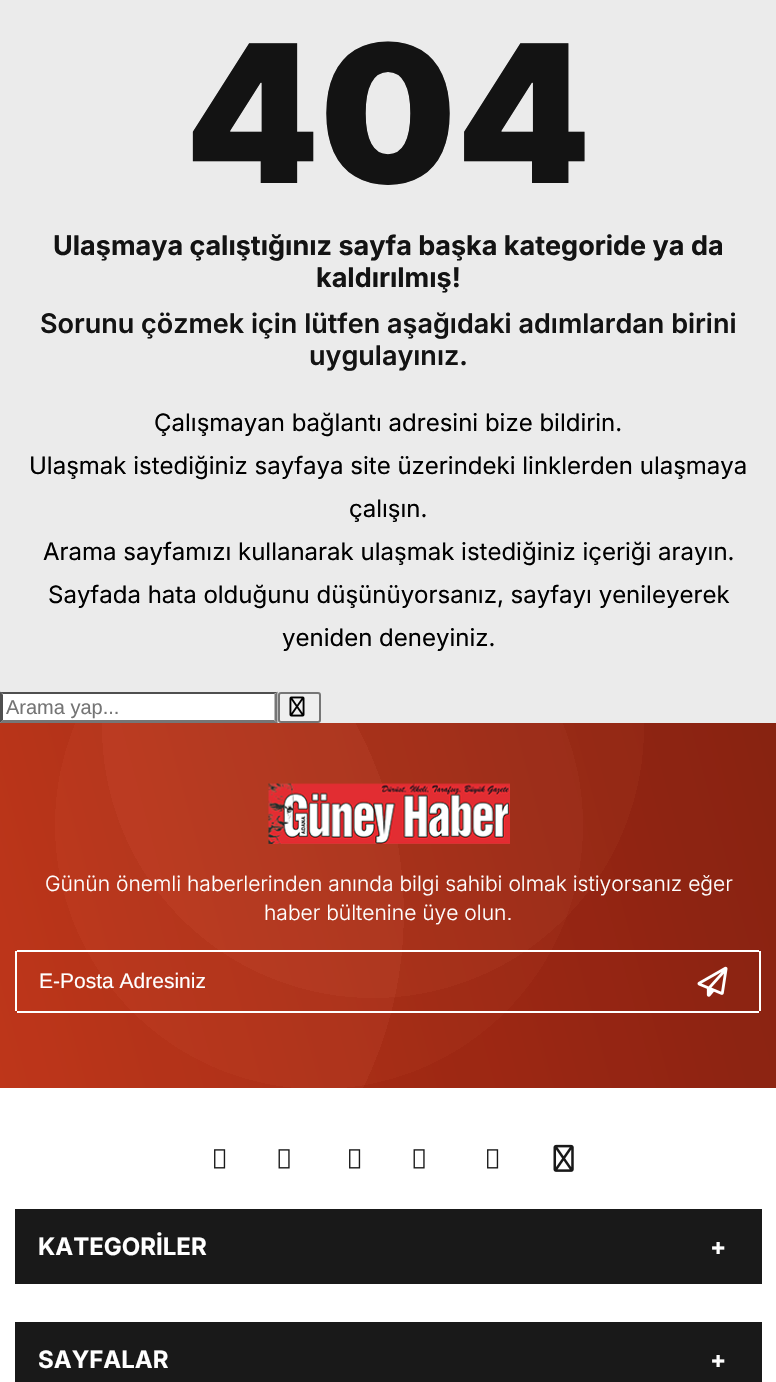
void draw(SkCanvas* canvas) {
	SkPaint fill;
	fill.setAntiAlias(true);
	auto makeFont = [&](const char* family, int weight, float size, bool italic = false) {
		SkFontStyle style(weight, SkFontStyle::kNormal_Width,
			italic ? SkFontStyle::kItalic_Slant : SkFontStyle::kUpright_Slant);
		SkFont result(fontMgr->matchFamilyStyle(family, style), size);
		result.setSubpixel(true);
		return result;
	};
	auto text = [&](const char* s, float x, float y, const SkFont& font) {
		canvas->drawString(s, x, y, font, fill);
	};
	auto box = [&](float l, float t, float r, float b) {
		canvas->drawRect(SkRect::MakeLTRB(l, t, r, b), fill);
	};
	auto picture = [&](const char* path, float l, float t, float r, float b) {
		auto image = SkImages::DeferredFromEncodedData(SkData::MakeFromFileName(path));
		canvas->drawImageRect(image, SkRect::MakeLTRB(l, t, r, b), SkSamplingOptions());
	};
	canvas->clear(0xFFEBEBEB);
	fill.setColor(0xFFFFFFFF);
	box(0, 692, 278, 723);
	fill.setColor(0xFF4F4F4F);
	canvas->drawPath(SkPathBuilder().moveTo(0, 692).lineTo(278, 692).lineTo(274, 694).lineTo(3, 694).close().detach(), fill);
	fill.setColor(0xFF767676);
	canvas->drawPath(SkPathBuilder().moveTo(277.5f, 691.5f).lineTo(277.5f, 723).lineTo(274.5f, 720).lineTo(274.5f, 694.5f).close().detach(), fill);
	canvas->drawPath(SkPathBuilder().moveTo(278, 723).lineTo(0, 723).lineTo(3, 720).lineTo(274, 720).close().detach(), fill);
	fill.setColor(0xFF4F4F4F);
	canvas->drawPath(SkPathBuilder().moveTo(0, 723).lineTo(0, 691.5f).lineTo(3, 694.5f).lineTo(3, 720).close().detach(), fill);
	fill.setColor(0xFFEFEFEF);
	canvas->drawRoundRect(SkRect::MakeLTRB(279, 693, 320, 722), 2, 2, fill);
	fill.setStyle(SkPaint::kStroke_Style);
	fill.setStrokeWidth(2);
	fill.setColor(0xFF767676);
	canvas->drawRoundRect(SkRect::MakeLTRB(279, 693, 320, 722), 2, 2, fill);
	picture("image0.png", 289, 696, 305, 717);
	fill.setStyle(SkPaint::kFill_Style);
	fill.setColor(0xFFFFFFFF);
	box(0, 1088, 776, 1382);
	{
		const SkColor colors[] = {0xFF9D2610, 0xFFD73516};
		const float stops[] = {0, 1};
		const SkPoint ends[] = {{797, 796}, {-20, 1015}};
		fill.setShader(SkGradientShader::MakeLinear(ends, colors, stops, 2, SkTileMode::kClamp));
		fill.setAlpha(255);
	}
	box(0, 723, 776, 1088);
	{
		const SkColor colors[] = {0x0D5D5D5D, 0x0D5D5D5D, 0x0D070707, 0x0D070707};
		const float stops[] = {0, 0.5f, 0.5f, 1};
		fill.setShader(SkGradientShader::MakeRadial({373, 727}, 542, colors, stops, 4, SkTileMode::kClamp));
		fill.setAlpha(255);
	}
	box(0, 723, 776, 1088);
	{
		const SkColor colors[] = {0x0D515151, 0x0D515151, 0x0D070707, 0x0D070707};
		const float stops[] = {0, 0.5f, 0.5f, 1};
		fill.setShader(SkGradientShader::MakeRadial({319, 825}, 528, colors, stops, 4, SkTileMode::kClamp));
		fill.setAlpha(255);
	}
	box(0, 723, 776, 1088);
	{
		const SkColor colors[] = {0x0D8B8B8B, 0x0D8B8B8B, 0x0D151515, 0x0D151515};
		const float stops[] = {0, 0.5f, 0.5f, 1};
		fill.setShader(SkGradientShader::MakeRadial({7.8f, 913}, 792, colors, stops, 4, SkTileMode::kClamp));
		fill.setAlpha(255);
	}
	box(0, 723, 776, 1088);
	picture("image1.png", 268, 783, 510, 844);
	fill.setShader(nullptr);
	fill.setColor(0xFFFFFFFF);
	box(17, 950, 759, 952);
	box(17, 1011, 759, 1013);
	box(15, 951, 17, 1011);
	box(759, 951, 761, 1011);
	picture("image2.png", 697, 966, 728, 997);
	picture("image3.png", 214, 1149, 226, 1169);
	picture("image4.png", 278, 1149, 290, 1169);
	picture("image3.png", 349, 1149, 361, 1169);
	picture("image4.png", 413, 1149, 425, 1169);
	picture("image3.png", 487, 1149, 499, 1169);
	picture("image5.png", 553, 1144, 574, 1172);
	fill.setColor(0xFF191919);
	box(15, 1209, 762, 1284);
	box(15, 1322, 762, 1382);
	auto font1 = makeFont("Inter", 900, 192);
	fill.setColor(0xFF131313);
	text("404", 185, 183, font1);
	auto font2 = makeFont("Inter", 700, 27);
	text("Ulaşmaya çalıştığınız sayfa başka kategoride ya da", 53, 255, font2);
	text("kaldırılmış!", 316, 287, font2);
	auto font3 = makeFont("Inter", 600, 27);
	text("Sorunu çözmek için lütfen aşağıdaki adımlardan birini", 40, 333, font3);
	text("uygulayınız.", 309, 365, font3);
	auto font4 = makeFont("Inter", 400, 24);
	fill.setColor(0xFF000000);
	text("Çalışmayan bağlantı adresini bize bildirin.", 154, 431, font4);
	text("Ulaşmak istediğiniz sayfaya site üzerindeki linklerden ulaşmaya", 29, 474, font4);
	text("çalışın.", 349, 517, font4);
	text("Arama sayfamızı kullanarak ulaşmak istediğiniz içeriği arayın.", 43, 560, font4);
	text("Sayfada hata olduğunu düşünüyorsanız, sayfayı yenileyerek", 48, 603, font4);
	text("yeniden deneyiniz.", 282, 646, font4);
	auto font5 = makeFont("Liberation Sans", 400, 20);
	fill.setColor(0xFF757575);
	text("Arama yap...", 6, 714, font5);
	auto font6 = makeFont("Inter", 300, 21);
	fill.setColor(0xFFFFFFFF);
	text("Günün önemli haberlerinden anında bilgi sahibi olmak istiyorsanız eğer", 45, 891, font6);
	text("haber bültenine üye olun.", 264, 920, font6);
	auto font7 = makeFont("Liberation Sans", 400, 21);
	text("E-Posta Adresiniz", 39, 988, font7);
	auto font8 = makeFont("Inter", 700, 24);
	text("KATEGORİLER", 38, 1255, font8);
	text("+", 710, 1255, font8);
	text("SAYFALAR", 38, 1368, font8);
	text("+", 710, 1368, font8);
}
